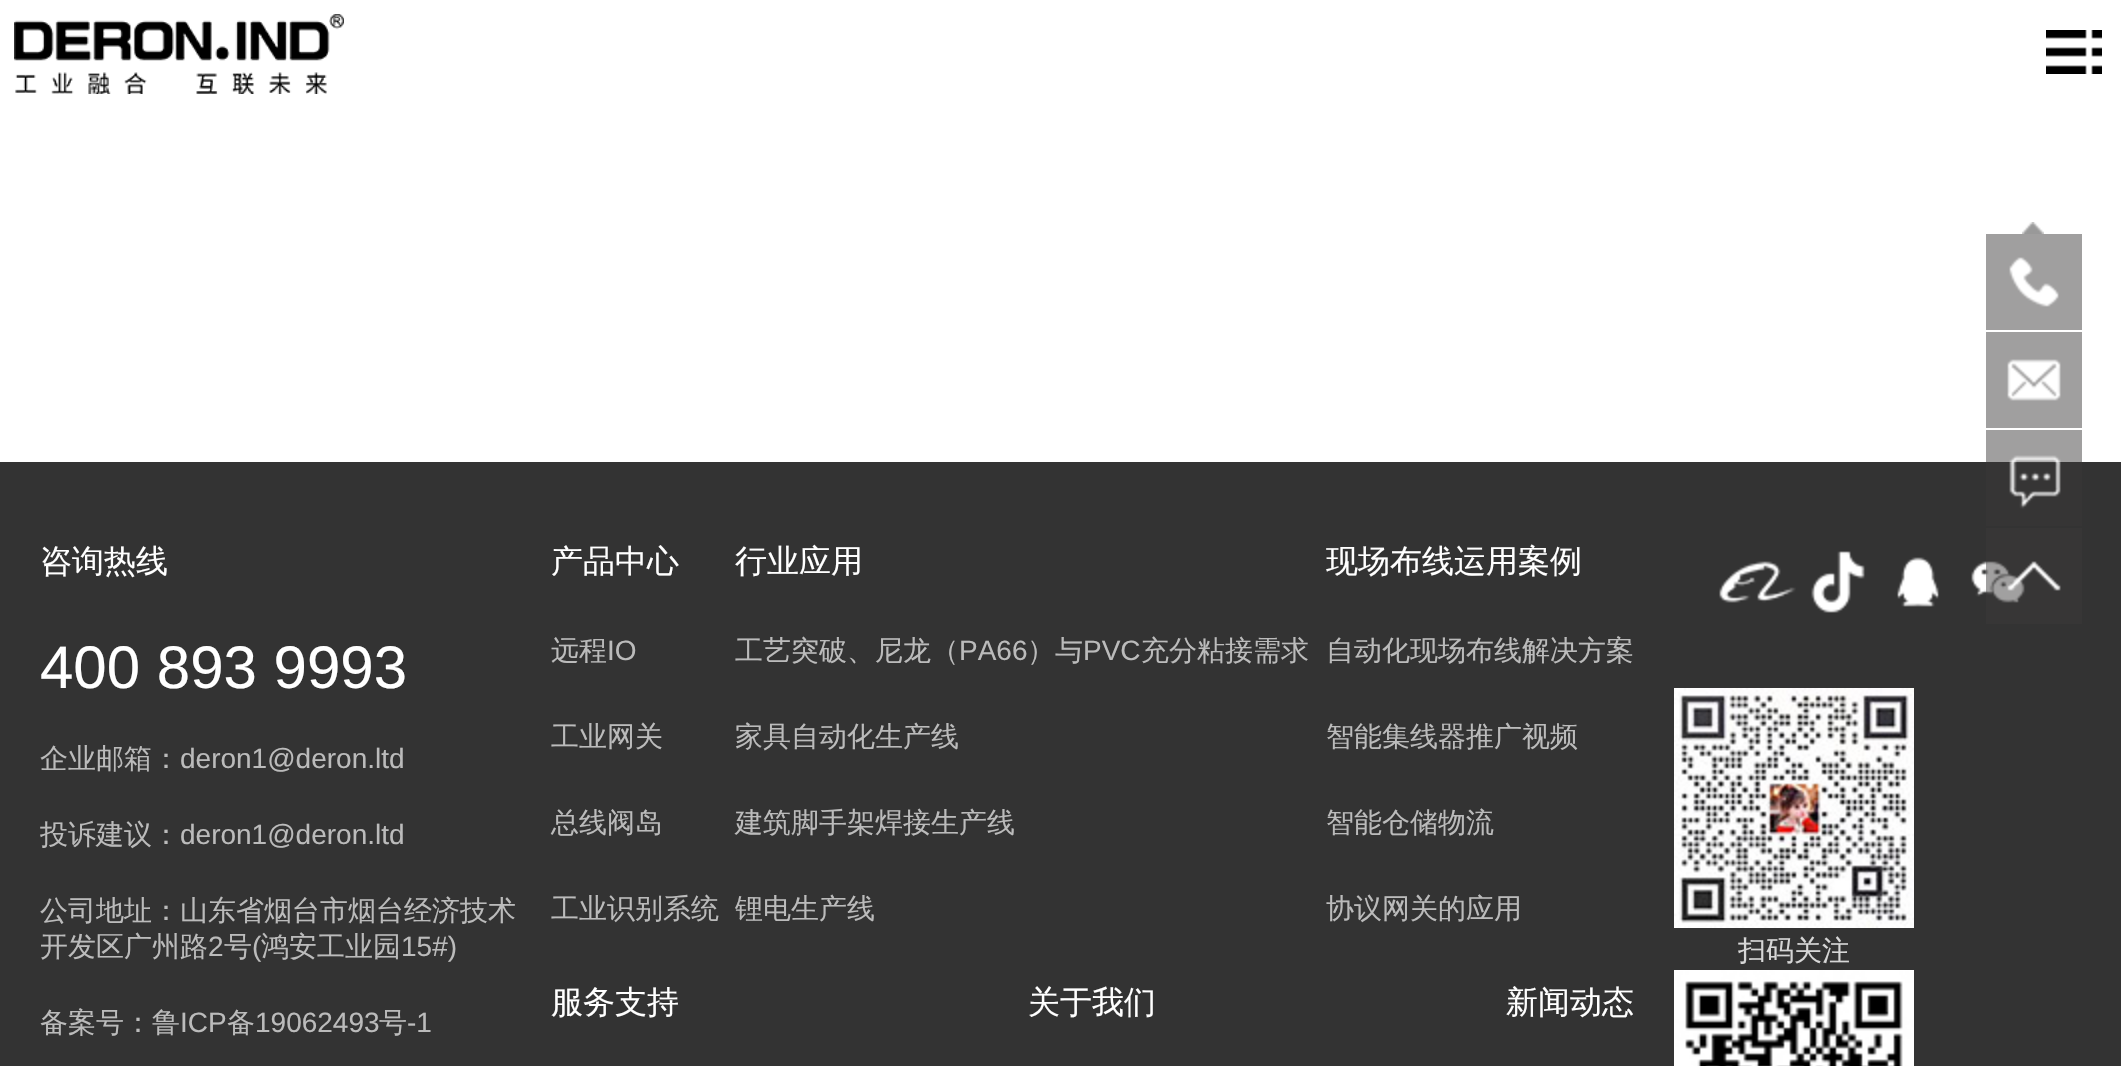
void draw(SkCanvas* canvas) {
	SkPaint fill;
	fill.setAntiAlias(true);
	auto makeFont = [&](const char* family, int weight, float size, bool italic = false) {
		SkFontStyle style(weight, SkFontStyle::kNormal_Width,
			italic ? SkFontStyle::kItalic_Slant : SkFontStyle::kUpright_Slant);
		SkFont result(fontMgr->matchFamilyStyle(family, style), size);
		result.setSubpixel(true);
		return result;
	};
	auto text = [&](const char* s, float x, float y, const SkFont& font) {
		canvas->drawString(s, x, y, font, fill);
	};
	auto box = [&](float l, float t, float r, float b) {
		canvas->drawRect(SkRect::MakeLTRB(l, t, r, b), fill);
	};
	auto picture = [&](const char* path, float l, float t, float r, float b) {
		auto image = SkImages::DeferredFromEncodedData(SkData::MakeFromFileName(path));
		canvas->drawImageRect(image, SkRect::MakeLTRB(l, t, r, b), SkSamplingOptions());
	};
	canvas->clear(0xFFFFFFFF);
	fill.setColor(0xFFA09F9F);
	box(1986, 430, 2082, 462);
	picture("image0.png", 14, 14, 344, 94);
	picture("image1.png", 2046, 30, 2102, 74);
	picture("image2.png", 2022, 222, 2044, 234);
	box(1986, 234, 2082, 330);
	picture("image3.png", 2009, 257, 2059, 307);
	box(1986, 332, 2082, 428);
	picture("image4.png", 2007, 359, 2061, 401);
	fill.setColor(0xFF333333);
	box(0, 462, 2121, 1066);
	fill.setColor(0xFF363535);
	box(1986, 462, 2082, 526);
	picture("image5.png", 2009, 455, 2061, 509);
	picture("image10.png", 1971, 561, 2025, 603);
	fill.setColor(0x7A3A3838);
	box(1986, 528, 2082, 624);
	picture("image6.png", 2007, 561, 2061, 591);
	picture("image7.png", 1719, 561, 1796, 603);
	picture("image8.png", 1811, 551, 1865, 613);
	picture("image9.png", 1897, 557, 1939, 607);
	picture("image11.png", 1674, 688, 1914, 928);
	picture("image12.png", 1674, 970, 1914, 1066);
	auto font1 = makeFont("WenQuanYi Zen Hei", 500, 32);
	fill.setColor(0xFFFFFFFF);
	text("咨询热线", 40, 572, font1);
	auto font2 = makeFont("Liberation Sans", 400, 60);
	text("400 893 9993", 40, 688, font2);
	auto font3 = makeFont("WenQuanYi Zen Hei", 500, 28);
	fill.setColor(0xFFBBBBBB);
	text("企业邮箱：", 40, 768, font3);
	auto font4 = makeFont("Liberation Sans", 400, 28);
	text("deron1@deron.ltd", 180, 768, font4);
	text("投诉建议：", 40, 844, font3);
	text("deron1@deron.ltd", 180, 844, font4);
	text("公司地址：山东省烟台市烟台经济技术", 40, 920, font3);
	text("开发区广州路", 40, 956, font3);
	text("2", 208, 956, font4);
	text("号", 224, 956, font3);
	text("(", 252, 956, font4);
	text("鸿安工业园", 261, 956, font3);
	text("15#)", 401, 956, font4);
	text("备案号：鲁", 40, 1032, font3);
	text("ICP", 180, 1032, font4);
	text("备", 227, 1032, font3);
	text("19062493", 255, 1032, font4);
	text("号", 379, 1032, font3);
	text("-1", 407, 1032, font4);
	fill.setColor(0xFFFFFFFF);
	text("产品中心", 551, 572, font1);
	fill.setColor(0xFFBBBBBB);
	text("远程", 551, 660, font3);
	text("IO", 607, 660, font4);
	text("工业网关", 551, 746, font3);
	text("总线阀岛", 551, 832, font3);
	text("工业识别系统", 551, 918, font3);
	fill.setColor(0xFFFFFFFF);
	text("行业应用", 735, 572, font1);
	fill.setColor(0xFFBBBBBB);
	text("工艺突破、尼龙（", 735, 660, font3);
	text("PA66", 959, 660, font4);
	text("）与", 1027, 660, font3);
	text("PVC", 1083, 660, font4);
	text("充分粘接需求", 1141, 660, font3);
	text("家具自动化生产线", 735, 746, font3);
	text("建筑脚手架焊接生产线", 735, 832, font3);
	text("锂电生产线", 735, 918, font3);
	fill.setColor(0xFFFFFFFF);
	text("现场布线运用案例", 1326, 572, font1);
	fill.setColor(0xFFBBBBBB);
	text("自动化现场布线解决方案", 1326, 660, font3);
	text("智能集线器推广视频", 1326, 746, font3);
	text("智能仓储物流", 1326, 832, font3);
	text("协议网关的应用", 1326, 918, font3);
	fill.setColor(0xFFFFFFFF);
	text("服务支持", 551, 1013, font1);
	text("关于我们", 1028, 1013, font1);
	text("新闻动态", 1506, 1013, font1);
	fill.setColor(0xFFD6D6D6);
	text("扫码关注", 1738, 960, font3);
}
